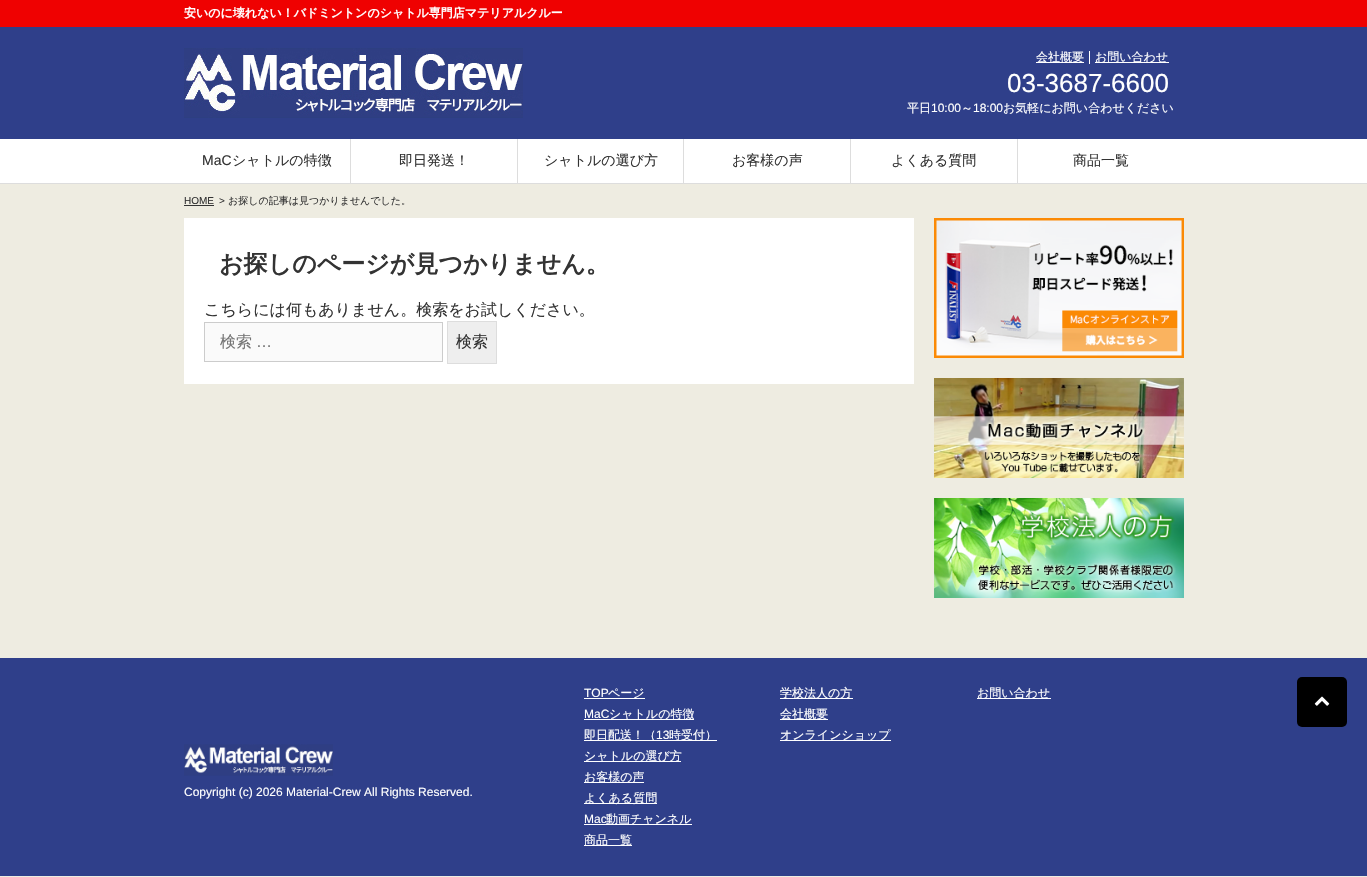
void draw(SkCanvas* canvas) {
	SkPaint fill;
	fill.setAntiAlias(true);
	auto makeFont = [&](const char* family, int weight, float size, bool italic = false) {
		SkFontStyle style(weight, SkFontStyle::kNormal_Width,
			italic ? SkFontStyle::kItalic_Slant : SkFontStyle::kUpright_Slant);
		SkFont result(fontMgr->matchFamilyStyle(family, style), size);
		result.setSubpixel(true);
		return result;
	};
	auto text = [&](const char* s, float x, float y, const SkFont& font) {
		canvas->drawString(s, x, y, font, fill);
	};
	auto box = [&](float l, float t, float r, float b) {
		canvas->drawRect(SkRect::MakeLTRB(l, t, r, b), fill);
	};
	auto roundBox = [&](float l, float t, float r, float b, float radius) {
		canvas->drawRoundRect(SkRect::MakeLTRB(l, t, r, b), radius, radius, fill);
	};
	auto picture = [&](const char* path, float l, float t, float r, float b) {
		auto image = SkImages::DeferredFromEncodedData(SkData::MakeFromFileName(path));
		canvas->drawImageRect(image, SkRect::MakeLTRB(l, t, r, b), SkSamplingOptions());
	};
	canvas->clear(0xFFEEECE1);
	fill.setColor(0xFFEF0101);
	box(0, 0, 1367, 27);
	fill.setColor(0xFF2F3F8A);
	box(0, 27, 1367, 139);
	picture("image0.png", 184, 48, 523, 118);
	fill.setColor(0xFFFFFFFF);
	box(1089, 51, 1090, 64);
	box(1036, 62, 1084, 63);
	box(1095, 62, 1169, 63);
	box(0, 139, 1367, 183);
	fill.setColor(0xFFDDDDDD);
	box(0, 183, 1367, 184);
	box(350, 139, 351, 183);
	box(517, 139, 518, 183);
	box(683, 139, 684, 183);
	box(850, 139, 851, 183);
	box(1017, 139, 1018, 183);
	fill.setColor(0xFF333333);
	box(184, 205, 214, 206);
	fill.setColor(0xFFFFFFFF);
	box(184, 218, 914, 384);
	fill.setColor(0xFFFAFAFA);
	canvas->drawRect(SkRect::MakeLTRB(204.5f, 322.5f, 442.5f, 361.5f), fill);
	fill.setStyle(SkPaint::kStroke_Style);
	fill.setStrokeWidth(1);
	fill.setColor(0xFFCCCCCC);
	canvas->drawRect(SkRect::MakeLTRB(204.5f, 322.5f, 442.5f, 361.5f), fill);
	fill.setStyle(SkPaint::kFill_Style);
	fill.setColor(0xFFEEEEEE);
	canvas->drawRect(SkRect::MakeLTRB(447.5f, 321.5f, 496.5f, 363.5f), fill);
	fill.setStyle(SkPaint::kStroke_Style);
	fill.setColor(0xFFDDDDDD);
	canvas->drawRect(SkRect::MakeLTRB(447.5f, 321.5f, 496.5f, 363.5f), fill);
	picture("image1.png", 934, 218, 1184, 358);
	picture("image2.png", 934, 378, 1184, 478);
	picture("image3.png", 934, 498, 1184, 598);
	fill.setStyle(SkPaint::kFill_Style);
	fill.setColor(0xFF2F3F8A);
	box(0, 658, 1367, 876);
	fill.setColor(0xFF000000);
	roundBox(1297, 677, 1347, 727, 5);
	picture("image4.png", 1314, 696, 1330, 706);
	picture("image5.png", 184, 744, 333, 776);
	fill.setColor(0xFFFFFFFF);
	box(584, 698, 645, 699);
	box(584, 719, 694, 720);
	box(584, 740, 717, 741);
	box(584, 761, 681, 762);
	box(584, 782, 644, 783);
	box(584, 803, 657, 804);
	box(584, 824, 692, 825);
	box(584, 845, 632, 846);
	box(780, 698, 853, 699);
	box(780, 719, 828, 720);
	box(780, 740, 891, 741);
	box(977, 698, 1051, 699);
	auto font1 = makeFont("WenQuanYi Zen Hei", 700, 12);
	text("安いのに壊れない！バドミントンのシャトル専門店マテリアルクルー", 184, 17, font1);
	auto font2 = makeFont("WenQuanYi Zen Hei", 500, 12);
	text("会社概要", 1036, 61, font2);
	text("お問い合わせ", 1095, 61, font2);
	auto font3 = makeFont("Liberation Sans", 400, 26);
	text("03-3687-6600", 1007, 92, font3);
	text("平日", 907, 112, font2);
	auto font4 = makeFont("Liberation Sans", 400, 12);
	text("10:00", 931, 112, font4);
	text("～", 961, 112, font2);
	text("18:00", 973, 112, font4);
	text("お気軽にお問い合わせください", 1003, 112, font2);
	auto font5 = makeFont("Liberation Sans", 400, 14);
	fill.setColor(0xFF333333);
	text("MaC", 202, 165, font5);
	auto font6 = makeFont("WenQuanYi Zen Hei", 500, 14);
	text("シャトルの特徴", 232, 165, font6);
	text("即日発送！", 399, 165, font6);
	text("シャトルの選び方", 544, 165, font6);
	text("お客様の声", 732, 165, font6);
	text("よくある質問", 891, 165, font6);
	text("商品一覧", 1073, 165, font6);
	auto font7 = makeFont("Liberation Sans", 400, 10);
	text("HOME", 184, 204, font7);
	text(">", 219, 204, font7);
	auto font8 = makeFont("WenQuanYi Zen Hei", 500, 10);
	text("お探しの記事は見つかりませんでした。", 228, 204, font8);
	auto font9 = makeFont("WenQuanYi Zen Hei", 700, 24);
	text("お探しのページが見つかりません。", 219, 272, font9);
	auto font10 = makeFont("WenQuanYi Zen Hei", 500, 16);
	text("こちらには何もありません。検索をお試しください。", 204, 315, font10);
	fill.setColor(0xFF757575);
	text("検索", 220, 347, font10);
	auto font11 = makeFont("Liberation Sans", 400, 16);
	text("…", 256, 347, font11);
	fill.setColor(0xFF333333);
	text("検索", 456, 347, font10);
	fill.setColor(0xFFFFFFFF);
	text("Copyright (c) 2026 Material-Crew All Rights Reserved.", 184, 796, font4);
	text("TOP", 584, 697, font4);
	text("ページ", 608, 697, font2);
	text("MaC", 584, 718, font4);
	text("シャトルの特徴", 609, 718, font2);
	text("即日配送！（", 584, 739, font2);
	text("13", 656, 739, font4);
	text("時受付）", 669, 739, font2);
	text("シャトルの選び方", 584, 760, font2);
	text("お客様の声", 584, 781, font2);
	text("よくある質問", 584, 802, font2);
	text("Mac", 584, 823, font4);
	text("動画チャンネル", 606, 823, font2);
	text("商品一覧", 584, 844, font2);
	text("学校法人の方", 780, 697, font2);
	text("会社概要", 780, 718, font2);
	text("オンラインショップ", 780, 739, font2);
	text("お問い合わせ", 977, 697, font2);
}
